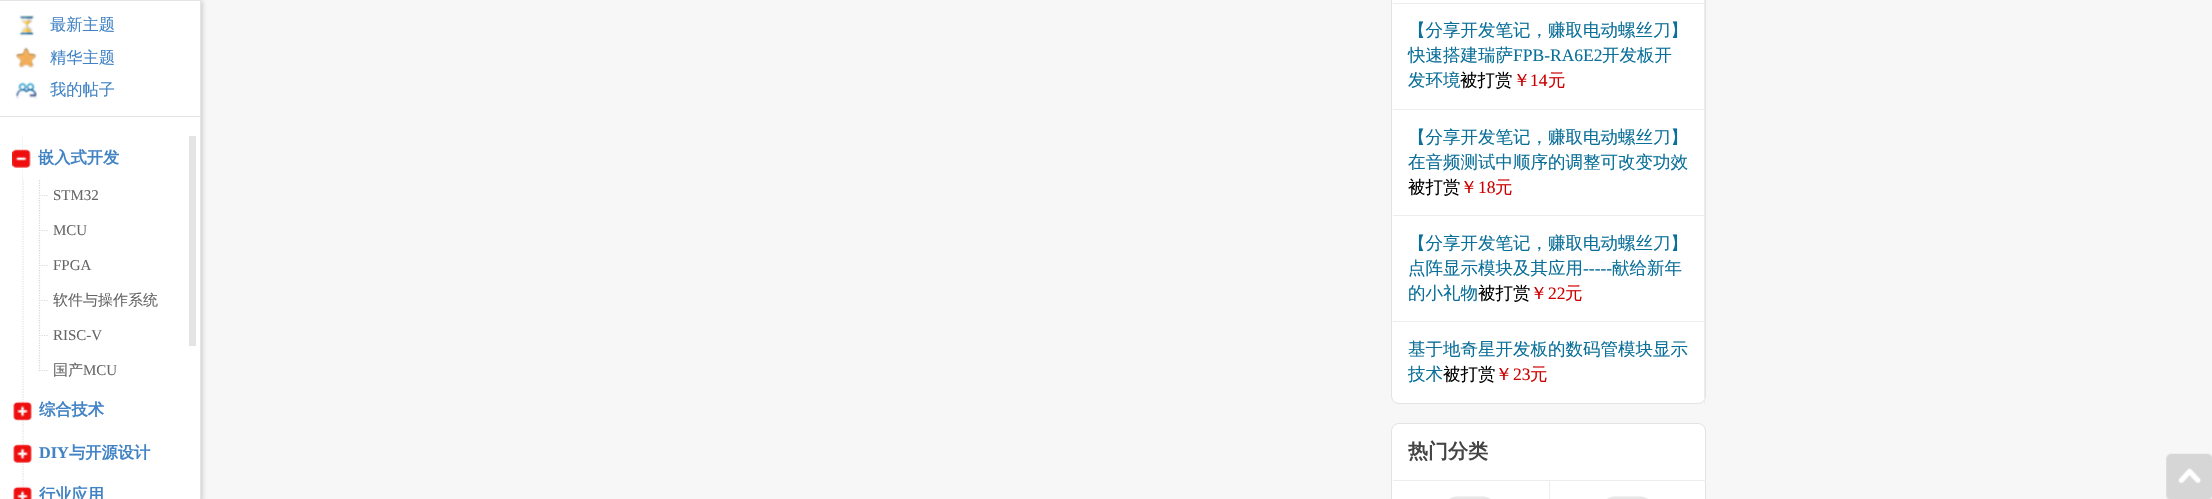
void draw(SkCanvas* canvas) {
	SkPaint fill;
	fill.setAntiAlias(true);
	auto makeFont = [&](const char* family, int weight, float size, bool italic = false) {
		SkFontStyle style(weight, SkFontStyle::kNormal_Width,
			italic ? SkFontStyle::kItalic_Slant : SkFontStyle::kUpright_Slant);
		SkFont result(fontMgr->matchFamilyStyle(family, style), size);
		result.setSubpixel(true);
		return result;
	};
	auto text = [&](const char* s, float x, float y, const SkFont& font) {
		canvas->drawString(s, x, y, font, fill);
	};
	auto box = [&](float l, float t, float r, float b) {
		canvas->drawRect(SkRect::MakeLTRB(l, t, r, b), fill);
	};
	auto picture = [&](const char* path, float l, float t, float r, float b) {
		auto image = SkImages::DeferredFromEncodedData(SkData::MakeFromFileName(path));
		canvas->drawImageRect(image, SkRect::MakeLTRB(l, t, r, b), SkSamplingOptions());
	};
	canvas->clear(0xFFF7F7F7);
	fill.setColor(0xFFD3D3D3);
	fill.setMaskFilter(SkMaskFilter::MakeBlur(kNormal_SkBlurStyle, 2));
	canvas->drawRect(SkRect::MakeLTRB(0, 1, 203, 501), fill);
	fill.setMaskFilter(nullptr);
	fill.setColor(0xFFFFFFFF);
	canvas->drawRect(SkRect::MakeLTRB(-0.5f, 0.5f, 200.5f, 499.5f), fill);
	fill.setStyle(SkPaint::kStroke_Style);
	fill.setStrokeWidth(1);
	fill.setColor(0xFFE4E4E4);
	canvas->drawRect(SkRect::MakeLTRB(-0.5f, 0.5f, 200.5f, 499.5f), fill);
	fill.setStyle(SkPaint::kFill_Style);
	box(0, 116, 200, 117);
	picture("image0.png", 19, 15, 35, 36);
	picture("image1.png", 15, 47, 37, 68);
	picture("image2.png", 15, 81, 37, 99);
	fill.setStyle(SkPaint::kStroke_Style);
	fill.setStrokeWidth(1.2f);
	fill.setPathEffect(SkDashPathEffect::Make({{1.25f, 1.25f}}, 0));
	canvas->drawPath(SkPathBuilder().moveTo(23, 136).lineTo(23, 389).detach(), fill);
	fill.setPathEffect(nullptr);
	fill.setStyle(SkPaint::kFill_Style);
	fill.setColor(0xFFFFFFFF);
	box(23, 136, 24, 179);
	picture("image3.png", 12, 149, 31, 168);
	fill.setStyle(SkPaint::kStroke_Style);
	fill.setColor(0xFFD7D7D7);
	fill.setPathEffect(SkDashPathEffect::Make({{1.25f, 1.25f}}, 0));
	canvas->drawPath(SkPathBuilder().moveTo(39, 195.5f).lineTo(49, 195.5f).detach(), fill);
	fill.setPathEffect(nullptr);
	canvas->save();
	canvas->clipRect(SkRect::MakeLTRB(24, 179, 199, 214));
	fill.setPathEffect(SkDashPathEffect::Make({{1.25f, 1.25f}}, 0));
	canvas->drawPath(SkPathBuilder().moveTo(39.5f, 160).lineTo(39.5f, 196).moveTo(39.5f, 197.5f).lineTo(39.5f, 232.5f).detach(), fill);
	fill.setPathEffect(nullptr);
	canvas->restore();
	fill.setPathEffect(SkDashPathEffect::Make({{1.25f, 1.25f}}, 0));
	canvas->drawPath(SkPathBuilder().moveTo(39, 230.5f).lineTo(49, 230.5f).detach(), fill);
	fill.setPathEffect(nullptr);
	canvas->save();
	canvas->clipRect(SkRect::MakeLTRB(24, 214, 199, 249));
	fill.setPathEffect(SkDashPathEffect::Make({{1.25f, 1.25f}}, 0));
	canvas->drawPath(SkPathBuilder().moveTo(39.5f, 195).lineTo(39.5f, 231).moveTo(39.5f, 232.5f).lineTo(39.5f, 267.5f).detach(), fill);
	fill.setPathEffect(nullptr);
	canvas->restore();
	fill.setPathEffect(SkDashPathEffect::Make({{1.25f, 1.25f}}, 0));
	canvas->drawPath(SkPathBuilder().moveTo(39, 265.5f).lineTo(49, 265.5f).detach(), fill);
	fill.setPathEffect(nullptr);
	canvas->save();
	canvas->clipRect(SkRect::MakeLTRB(24, 249, 199, 284));
	fill.setPathEffect(SkDashPathEffect::Make({{1.25f, 1.25f}}, 0));
	canvas->drawPath(SkPathBuilder().moveTo(39.5f, 230).lineTo(39.5f, 266).moveTo(39.5f, 267.5f).lineTo(39.5f, 302.5f).detach(), fill);
	fill.setPathEffect(nullptr);
	canvas->restore();
	fill.setPathEffect(SkDashPathEffect::Make({{1.25f, 1.25f}}, 0));
	canvas->drawPath(SkPathBuilder().moveTo(39, 300.5f).lineTo(49, 300.5f).detach(), fill);
	fill.setPathEffect(nullptr);
	canvas->save();
	canvas->clipRect(SkRect::MakeLTRB(24, 284, 199, 319));
	fill.setPathEffect(SkDashPathEffect::Make({{1.25f, 1.25f}}, 0));
	canvas->drawPath(SkPathBuilder().moveTo(39.5f, 265).lineTo(39.5f, 301).moveTo(39.5f, 302.5f).lineTo(39.5f, 337.5f).detach(), fill);
	fill.setPathEffect(nullptr);
	canvas->restore();
	fill.setPathEffect(SkDashPathEffect::Make({{1.25f, 1.25f}}, 0));
	canvas->drawPath(SkPathBuilder().moveTo(39, 335.5f).lineTo(49, 335.5f).detach(), fill);
	fill.setPathEffect(nullptr);
	canvas->save();
	canvas->clipRect(SkRect::MakeLTRB(24, 319, 199, 354));
	fill.setPathEffect(SkDashPathEffect::Make({{1.25f, 1.25f}}, 0));
	canvas->drawPath(SkPathBuilder().moveTo(39.5f, 300).lineTo(39.5f, 336).moveTo(39.5f, 337.5f).lineTo(39.5f, 372.5f).detach(), fill);
	fill.setPathEffect(nullptr);
	canvas->restore();
	fill.setPathEffect(SkDashPathEffect::Make({{1.25f, 1.25f}}, 0));
	canvas->drawPath(SkPathBuilder().moveTo(39, 370.5f).lineTo(49, 370.5f).detach(), fill);
	fill.setPathEffect(nullptr);
	canvas->save();
	canvas->clipRect(SkRect::MakeLTRB(24, 354, 199, 389));
	fill.setPathEffect(SkDashPathEffect::Make({{1.25f, 1.25f}}, 0));
	canvas->drawPath(SkPathBuilder().moveTo(39.5f, 335).lineTo(39.5f, 371).detach(), fill);
	fill.setPathEffect(nullptr);
	canvas->restore();
	fill.setColor(0xFFE4E4E4);
	fill.setPathEffect(SkDashPathEffect::Make({{1.25f, 1.25f}}, 0));
	canvas->drawPath(SkPathBuilder().moveTo(23, 389).lineTo(23, 431).detach(), fill);
	fill.setPathEffect(nullptr);
	picture("image4.png", 13, 401, 32, 421);
	fill.setPathEffect(SkDashPathEffect::Make({{1.25f, 1.25f}}, 0));
	canvas->drawPath(SkPathBuilder().moveTo(23, 431).lineTo(23, 474).detach(), fill);
	fill.setPathEffect(nullptr);
	picture("image5.png", 13, 444, 32, 463);
	fill.setPathEffect(SkDashPathEffect::Make({{1.25f, 1.25f}}, 0));
	canvas->drawPath(SkPathBuilder().moveTo(23, 474).lineTo(23, 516).detach(), fill);
	fill.setPathEffect(nullptr);
	picture("image6.png", 13, 486, 32, 499);
	fill.setStyle(SkPaint::kFill_Style);
	box(189, 136, 196, 346);
	fill.setColor(0xFFFFFFFF);
	canvas->drawRoundRect(SkRect::MakeLTRB(1391.5f, -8.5f, 1705.5f, 403.5f), 7.5f, 7.5f, fill);
	fill.setStyle(SkPaint::kStroke_Style);
	fill.setStrokeWidth(1);
	fill.setColor(0xFFE3E3E4);
	canvas->drawRoundRect(SkRect::MakeLTRB(1391.5f, -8.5f, 1705.5f, 403.5f), 7.5f, 7.5f, fill);
	fill.setStyle(SkPaint::kFill_Style);
	fill.setColor(0xFFEDEDED);
	box(1393, 3, 1705, 4);
	box(1393, 109, 1705, 110);
	box(1393, 215, 1705, 216);
	box(1393, 321, 1705, 322);
	box(1704, 0, 1705, 404);
	fill.setColor(0xFFFFFFFF);
	canvas->drawRoundRect(SkRect::MakeLTRB(1391.5f, 423.5f, 1705.5f, 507.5f), 7.5f, 7.5f, fill);
	fill.setStyle(SkPaint::kStroke_Style);
	fill.setColor(0xFFE3E3E4);
	canvas->drawRoundRect(SkRect::MakeLTRB(1391.5f, 423.5f, 1705.5f, 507.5f), 7.5f, 7.5f, fill);
	fill.setStyle(SkPaint::kFill_Style);
	fill.setColor(0xFFEDEDED);
	box(1393, 480, 1706, 481);
	box(1549, 480, 1550, 499);
	picture("image7.png", 1449, 496, 1491, 499);
	picture("image8.png", 1607, 496, 1648, 499);
	picture("image9.png", 2166, 453, 2212, 499);
	auto font1 = makeFont("WenQuanYi Zen Hei", 500, 16.25f);
	fill.setColor(0xFF4183C4);
	text("最新主题", 50, 30, font1);
	text("精华主题", 50, 63, font1);
	text("我的帖子", 50, 95, font1);
	auto font2 = makeFont("WenQuanYi Zen Hei", 700, 16.25f);
	text("嵌入式开发", 38, 163, font2);
	auto font3 = makeFont("Liberation Serif", 400, 15);
	fill.setColor(0xFF666666);
	text("STM32", 53, 200, font3);
	text("MCU", 53, 235, font3);
	text("FPGA", 53, 270, font3);
	auto font4 = makeFont("WenQuanYi Zen Hei", 500, 15);
	text("软件与操作系统", 53, 305, font4);
	text("RISC-V", 53, 340, font3);
	text("国产", 53, 375, font4);
	text("MCU", 83, 375, font3);
	fill.setColor(0xFF4183C4);
	text("综合技术", 39, 415, font2);
	auto font5 = makeFont("Liberation Serif", 700, 16.25f);
	text("DIY", 39, 458, font5);
	text("与开源设计", 69, 458, font2);
	text("行业应用", 39, 500, font2);
	auto font6 = makeFont("WenQuanYi Zen Hei", 500, 17.5f);
	fill.setColor(0xFF0A6F99);
	text("【分享开发笔记，赚取电动螺丝刀】", 1408, 36, font6);
	text("快速搭建瑞萨", 1408, 61, font6);
	auto font7 = makeFont("Liberation Serif", 400, 17.5f);
	text("FPB-RA6E2", 1513, 61, font7);
	text("开发板开", 1602, 61, font6);
	text("发环境", 1408, 86, font6);
	fill.setColor(0xFF000000);
	text("被打赏", 1460, 86, font6);
	fill.setColor(0xFFCC0000);
	text("￥", 1513, 86, font6);
	text("14", 1530, 86, font7);
	text("元", 1548, 86, font6);
	fill.setColor(0xFF0A6F99);
	text("【分享开发笔记，赚取电动螺丝刀】", 1408, 143, font6);
	text("在音频测试中顺序的调整可改变功效", 1408, 168, font6);
	fill.setColor(0xFF000000);
	text("被打赏", 1408, 193, font6);
	fill.setColor(0xFFCC0000);
	text("￥", 1460, 193, font6);
	text("18", 1478, 193, font7);
	text("元", 1495, 193, font6);
	fill.setColor(0xFF0A6F99);
	text("【分享开发笔记，赚取电动螺丝刀】", 1408, 249, font6);
	text("点阵显示模块及其应用", 1408, 274, font6);
	text("-----", 1583, 274, font7);
	text("献给新年", 1612, 274, font6);
	text("的小礼物", 1408, 299, font6);
	fill.setColor(0xFF000000);
	text("被打赏", 1478, 299, font6);
	fill.setColor(0xFFCC0000);
	text("￥", 1530, 299, font6);
	text("22", 1548, 299, font7);
	text("元", 1565, 299, font6);
	fill.setColor(0xFF0A6F99);
	text("基于地奇星开发板的数码管模块显示", 1408, 355, font6);
	text("技术", 1408, 380, font6);
	fill.setColor(0xFF000000);
	text("被打赏", 1443, 380, font6);
	fill.setColor(0xFFCC0000);
	text("￥", 1495, 380, font6);
	text("23", 1513, 380, font7);
	text("元", 1530, 380, font6);
	auto font8 = makeFont("WenQuanYi Zen Hei", 700, 20);
	fill.setColor(0xFF444444);
	text("热门分类", 1408, 458, font8);
}
